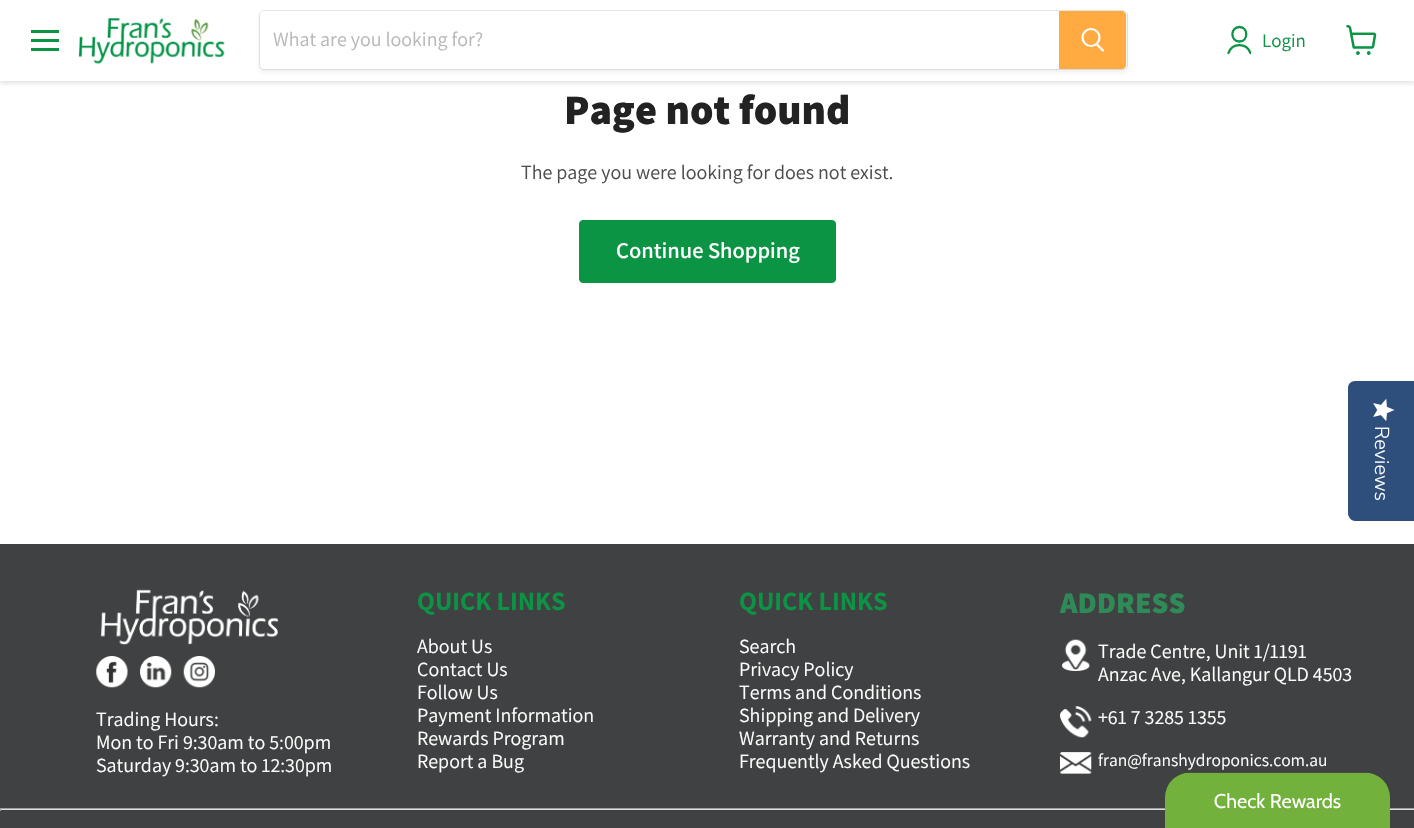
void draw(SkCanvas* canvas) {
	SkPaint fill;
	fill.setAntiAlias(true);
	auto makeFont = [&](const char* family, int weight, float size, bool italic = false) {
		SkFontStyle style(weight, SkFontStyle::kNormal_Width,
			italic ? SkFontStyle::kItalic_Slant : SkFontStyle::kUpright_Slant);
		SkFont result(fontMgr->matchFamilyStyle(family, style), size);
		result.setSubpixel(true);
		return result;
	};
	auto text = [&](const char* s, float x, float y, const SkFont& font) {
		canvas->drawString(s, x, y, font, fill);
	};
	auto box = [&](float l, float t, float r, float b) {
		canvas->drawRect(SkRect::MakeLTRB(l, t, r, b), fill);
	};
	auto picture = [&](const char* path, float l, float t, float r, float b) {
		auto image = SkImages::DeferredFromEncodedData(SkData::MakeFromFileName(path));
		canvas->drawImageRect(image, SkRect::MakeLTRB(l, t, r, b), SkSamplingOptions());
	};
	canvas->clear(0xFFFFFFFF);
	canvas->save();
	canvas->clipRect(SkRect::MakeLTRB(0, 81, 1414, 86));
	fill.setColor(0x40808080);
	fill.setMaskFilter(SkMaskFilter::MakeBlur(kNormal_SkBlurStyle, 2.5f));
	canvas->drawRect(SkRect::MakeLTRB(0, 0, 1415, 83), fill);
	fill.setMaskFilter(nullptr);
	canvas->restore();
	fill.setColor(0xFF0B9444);
	box(31, 30, 59, 33);
	box(31, 39, 59, 42);
	box(31, 48, 59, 51);
	picture("image0.png", 78, 18, 225, 64);
	fill.setColor(0x1C808080);
	fill.setMaskFilter(SkMaskFilter::MakeBlur(kNormal_SkBlurStyle, 2));
	canvas->drawRoundRect(SkRect::MakeLTRB(259, 13, 1128, 73), 5, 5, fill);
	fill.setMaskFilter(nullptr);
	fill.setStyle(SkPaint::kStroke_Style);
	fill.setStrokeWidth(1);
	fill.setColor(0x33808080);
	canvas->drawRoundRect(SkRect::MakeLTRB(259.5f, 10.5f, 1127.5f, 69.5f), 4.5f, 4.5f, fill);
	fill.setStyle(SkPaint::kFill_Style);
	fill.setColor(0xFFFFFFFF);
	canvas->drawPath(SkPathBuilder().moveTo(264, 11).lineTo(1059, 11).lineTo(1059, 69).lineTo(264, 69).cubicTo(262, 69, 260, 67, 260, 65).lineTo(260, 15).cubicTo(260, 13, 262, 11, 264, 11).close().detach(), fill);
	fill.setColor(0xFFFFAB41);
	canvas->drawPath(SkPathBuilder().moveTo(1059.5f, 11.5f).lineTo(1122, 11.5f).cubicTo(1124, 11.5f, 1125.5f, 13, 1125.5f, 15).lineTo(1125.5f, 65).cubicTo(1125.5f, 67, 1124, 68.5f, 1122, 68.5f).lineTo(1059.5f, 68.5f).close().detach(), fill);
	fill.setStyle(SkPaint::kStroke_Style);
	canvas->drawPath(SkPathBuilder().moveTo(1059.5f, 11.5f).lineTo(1122, 11.5f).cubicTo(1124, 11.5f, 1125.5f, 13, 1125.5f, 15).lineTo(1125.5f, 65).cubicTo(1125.5f, 67, 1124, 68.5f, 1122, 68.5f).lineTo(1059.5f, 68.5f).close().detach(), fill);
	fill.setStrokeWidth(2.2f);
	fill.setStrokeCap(SkPaint::kRound_Cap);
	fill.setColor(0xFFFFFFFF);
	canvas->drawPath(SkPathBuilder().moveTo(1103, 50.5f).lineTo(1097, 44.5f).detach(), fill);
	fill.setStrokeCap(SkPaint::kButt_Cap);
	canvas->drawCircle(1091, 37.5f, 8.5f, fill);
	fill.setStrokeWidth(2.3f);
	fill.setStrokeCap(SkPaint::kRound_Cap);
	fill.setStrokeJoin(SkPaint::kRound_Join);
	fill.setColor(0xFF0B9444);
	canvas->drawPath(SkPathBuilder().moveTo(1239.5f, 41.5f).cubicTo(1248.5f, 41.5f, 1248.5f, 27, 1239.5f, 27).cubicTo(1230, 27, 1230, 41.5f, 1239.5f, 41.5f).close().detach(), fill);
	canvas->save();
	canvas->clipRect(SkRect::MakeLTRB(1226, 25, 1251, 55));
	canvas->drawPath(SkPathBuilder().moveTo(1250.5f, 53).cubicTo(1246.5f, 42.5f, 1232, 42.5f, 1228.5f, 53).detach(), fill);
	canvas->restore();
	picture("image1.png", 1346, 25, 1377, 55);
	fill.setStyle(SkPaint::kFill_Style);
	canvas->drawRoundRect(SkRect::MakeLTRB(579.5f, 220.5f, 835.5f, 282.5f), 3.5f, 3.5f, fill);
	fill.setStyle(SkPaint::kStroke_Style);
	fill.setStrokeWidth(1);
	fill.setStrokeCap(SkPaint::kButt_Cap);
	fill.setStrokeJoin(SkPaint::kMiter_Join);
	canvas->drawRoundRect(SkRect::MakeLTRB(579.5f, 220.5f, 835.5f, 282.5f), 3.5f, 3.5f, fill);
	fill.setStyle(SkPaint::kFill_Style);
	fill.setColor(0xFF2E4F7C);
	canvas->drawPath(SkPathBuilder().moveTo(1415, 381).lineTo(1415, 521).lineTo(1355, 521).cubicTo(1351, 521, 1348, 517, 1348, 513).lineTo(1348, 388).cubicTo(1348, 384, 1351, 381, 1355, 381).close().detach(), fill);
	picture("image2.png", 1373, 399, 1395, 421);
	fill.setColor(0xFF404142);
	box(0, 544, 1414, 828);
	picture("image3.png", 100, 589, 279, 645);
	picture("image4.png", 96, 656, 128, 688);
	picture("image5.png", 140, 656, 172, 688);
	picture("image6.png", 183, 656, 215, 688);
	picture("image7.png", 1061, 639, 1090, 671);
	picture("image8.png", 1060, 706, 1092, 738);
	picture("image9.png", 1060, 752, 1092, 774);
	fill.setColor(0xFF9F9F9F);
	box(0, 808, 1414, 809);
	fill.setColor(0xFFDDDDDD);
	box(0, 809, 1414, 810);
	fill.setColor(0xFF9F9F9F);
	box(0, 808, 1, 811);
	picture("image10.png", 1165, 772, 1390, 828);
	auto font1 = makeFont("Assistant", 400, 20);
	fill.setColor(0xFFB8B8B8);
	text("What are you looking for?", 273, 46, font1);
	auto font2 = makeFont("Assistant", 400, 19);
	fill.setColor(0xFF0B9444);
	text("Login", 1262, 47, font2);
	auto font3 = makeFont("Assistant", 800, 42);
	fill.setColor(0xFF222222);
	text("Page not found", 564, 124, font3);
	fill.setColor(0xFF4D4D4D);
	text("The page you were looking for does not exist.", 521, 179, font1);
	auto font4 = makeFont("Assistant", 600, 22.5f);
	fill.setColor(0xFFFFFFFF);
	text("Continue Shopping", 616, 258, font4);
	auto font5 = makeFont("Nunito Sans", 300, 20);
	canvas->save();
	canvas->rotate(90, 1375, 426);
	text("Reviews", 1375, 426, font5);
	canvas->restore();
	text("Trading Hours:", 96, 726, font1);
	text("Mon to Fri 9:30am to 5:00pm", 96, 749, font1);
	text("Saturday 9:30am to 12:30pm", 96, 772, font1);
	auto font6 = makeFont("Assistant", 700, 26.25f);
	fill.setColor(0xFF0B9444);
	text("QUICK LINKS", 417, 610, font6);
	fill.setColor(0xFFFFFFFF);
	text("About Us", 417, 653, font1);
	text("Contact Us", 417, 676, font1);
	text("Follow Us", 417, 699, font1);
	text("Payment Information", 417, 722, font1);
	text("Rewards Program", 417, 745, font1);
	text("Report a Bug", 417, 768, font1);
	fill.setColor(0xFF0B9444);
	text("QUICK LINKS", 739, 610, font6);
	fill.setColor(0xFFFFFFFF);
	text("Search", 739, 653, font1);
	text("Privacy Policy", 739, 676, font1);
	text("Terms and Conditions", 739, 699, font1);
	text("Shipping and Delivery", 739, 722, font1);
	text("Warranty and Returns", 739, 745, font1);
	text("Frequently Asked Questions", 739, 768, font1);
	auto font7 = makeFont("Assistant", 800, 30);
	fill.setColor(0xFF2E8B57);
	text("ADDRESS", 1060, 613, font7);
	fill.setColor(0xFFFFFFFF);
	text("Trade Centre, Unit 1/1191", 1098, 658, font1);
	text("Anzac Ave, Kallangur QLD 4503", 1098, 681, font1);
	text("+61 7 3285 1355", 1098, 724, font1);
	auto font8 = makeFont("Assistant", 400, 17.5f);
	text("fran@franshydroponics.com.au", 1098, 766, font8);
}
